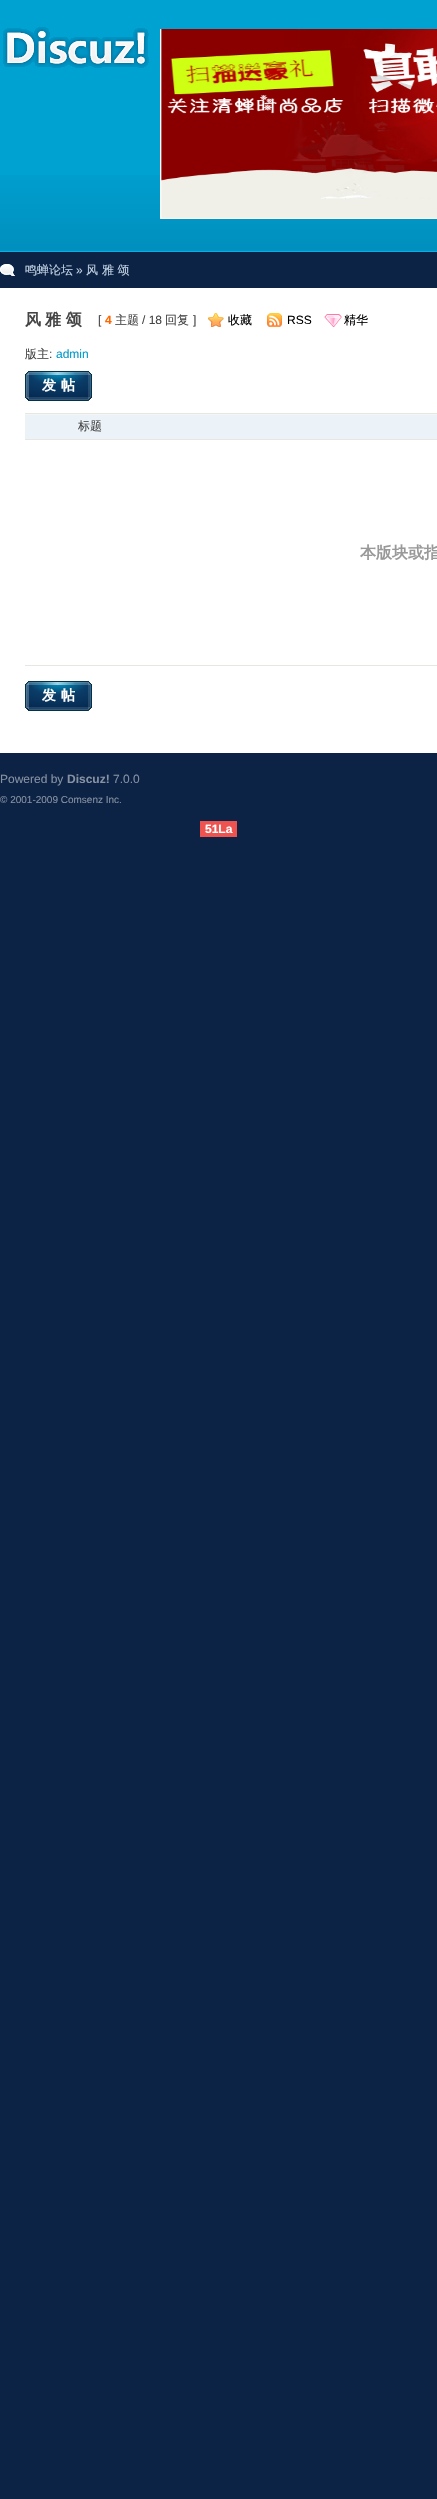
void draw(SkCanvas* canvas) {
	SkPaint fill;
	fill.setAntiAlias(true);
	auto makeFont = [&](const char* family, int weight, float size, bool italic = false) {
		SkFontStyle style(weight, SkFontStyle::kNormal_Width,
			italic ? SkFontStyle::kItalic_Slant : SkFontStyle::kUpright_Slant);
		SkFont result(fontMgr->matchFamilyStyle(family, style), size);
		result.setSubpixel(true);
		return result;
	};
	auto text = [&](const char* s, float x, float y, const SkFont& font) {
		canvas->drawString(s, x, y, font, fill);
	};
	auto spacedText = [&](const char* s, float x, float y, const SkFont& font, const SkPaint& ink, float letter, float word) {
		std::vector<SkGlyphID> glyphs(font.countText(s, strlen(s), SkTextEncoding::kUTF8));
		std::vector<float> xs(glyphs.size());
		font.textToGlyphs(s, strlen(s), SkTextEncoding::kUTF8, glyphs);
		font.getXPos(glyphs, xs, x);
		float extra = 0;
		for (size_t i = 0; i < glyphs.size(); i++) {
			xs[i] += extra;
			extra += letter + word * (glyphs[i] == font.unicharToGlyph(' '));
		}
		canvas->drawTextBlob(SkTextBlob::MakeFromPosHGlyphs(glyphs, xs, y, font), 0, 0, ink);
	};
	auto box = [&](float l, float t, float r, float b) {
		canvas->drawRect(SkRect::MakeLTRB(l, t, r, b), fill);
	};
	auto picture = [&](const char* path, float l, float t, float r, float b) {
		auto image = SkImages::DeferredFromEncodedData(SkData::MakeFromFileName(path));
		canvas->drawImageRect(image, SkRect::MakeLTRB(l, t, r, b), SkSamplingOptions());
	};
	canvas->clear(0xFF0D2345);
	fill.setColor(0xFF00A2D2);
	box(0, 0, 437, 175);
	picture("image0.png", 0, 175, 437, 251);
	fill.setColor(0xFF00B2E8);
	box(0, 251, 437, 252);
	picture("image1.png", 3, 27, 149, 68);
	picture("image2.png", 160, 29, 437, 219);
	picture("image3.png", 0, 264, 15, 276);
	fill.setColor(0xFFFFFFFF);
	box(0, 288, 437, 753);
	picture("image4.png", 208, 313, 224, 327);
	picture("image5.png", 267, 313, 282, 327);
	picture("image6.png", 324, 314, 342, 327);
	picture("image7.png", 25, 371, 92, 401);
	fill.setColor(0xFFE6E7E1);
	box(25, 413, 437, 414);
	box(25, 665, 437, 666);
	fill.setColor(0xFFF5F5F5);
	box(25, 414, 437, 415);
	fill.setColor(0xFFEBF2F8);
	box(25, 415, 437, 439);
	fill.setColor(0xFFE6E7E1);
	box(25, 439, 437, 440);
	picture("image7.png", 25, 681, 92, 711);
	fill.setColor(0xFFEF5350);
	box(200, 821, 237, 837);
	auto font1 = makeFont("WenQuanYi Zen Hei", 500, 12);
	fill.setColor(0xFFC3D3E4);
	text("鸣蝉论坛", 25, 274, font1);
	auto font2 = makeFont("Liberation Sans", 400, 12);
	text("»", 76, 274, font2);
	text("风", 86, 274, font1);
	text("雅 颂", 102, 274, font1);
	auto font3 = makeFont("WenQuanYi Zen Hei", 700, 16);
	fill.setColor(0xFF444444);
	text("风", 25, 325, font3);
	text("雅 颂", 45, 325, font3);
	text("[", 98, 324, font2);
	auto font4 = makeFont("Liberation Sans", 700, 12);
	fill.setColor(0xFFFF6600);
	text("4", 105, 324, font4);
	fill.setColor(0xFF444444);
	text("主题", 115, 324, font1);
	text("/ 18", 142, 324, font2);
	text("回复", 165, 324, font1);
	text("]", 193, 324, font2);
	fill.setColor(0xFF000000);
	text("收藏", 228, 324, font1);
	text("RSS", 287, 324, font2);
	text("精华", 344, 324, font1);
	fill.setColor(0xFF444444);
	text("版主", 25, 358, font1);
	text(":", 49, 358, font2);
	fill.setColor(0xFF0099CC);
	text("admin", 56, 358, font2);
	auto font5 = makeFont("WenQuanYi Zen Hei", 700, 14);
	fill.setColor(0xFFFFFFFF);
	spacedText("发帖", 42, 390, font5, fill, 5, 0);
	fill.setColor(0xFF444444);
	text("标题", 78, 430, font1);
	fill.setColor(0xFF999999);
	text("本版块或指", 360, 558, font3);
	fill.setColor(0xFFFFFFFF);
	spacedText("发帖", 42, 700, font5, fill, 5, 0);
	fill.setColor(0xFF8691A2);
	text("Powered by", 0, 783, font2);
	text("Discuz!", 67, 783, font4);
	text("7.0.0", 113, 783, font2);
	auto font6 = makeFont("Liberation Sans", 400, 10);
	text("© 2001-2009 Comsenz Inc.", 0, 803, font6);
	fill.setColor(0xFFFFFFFF);
	text("51La", 205, 833, font4);
}
